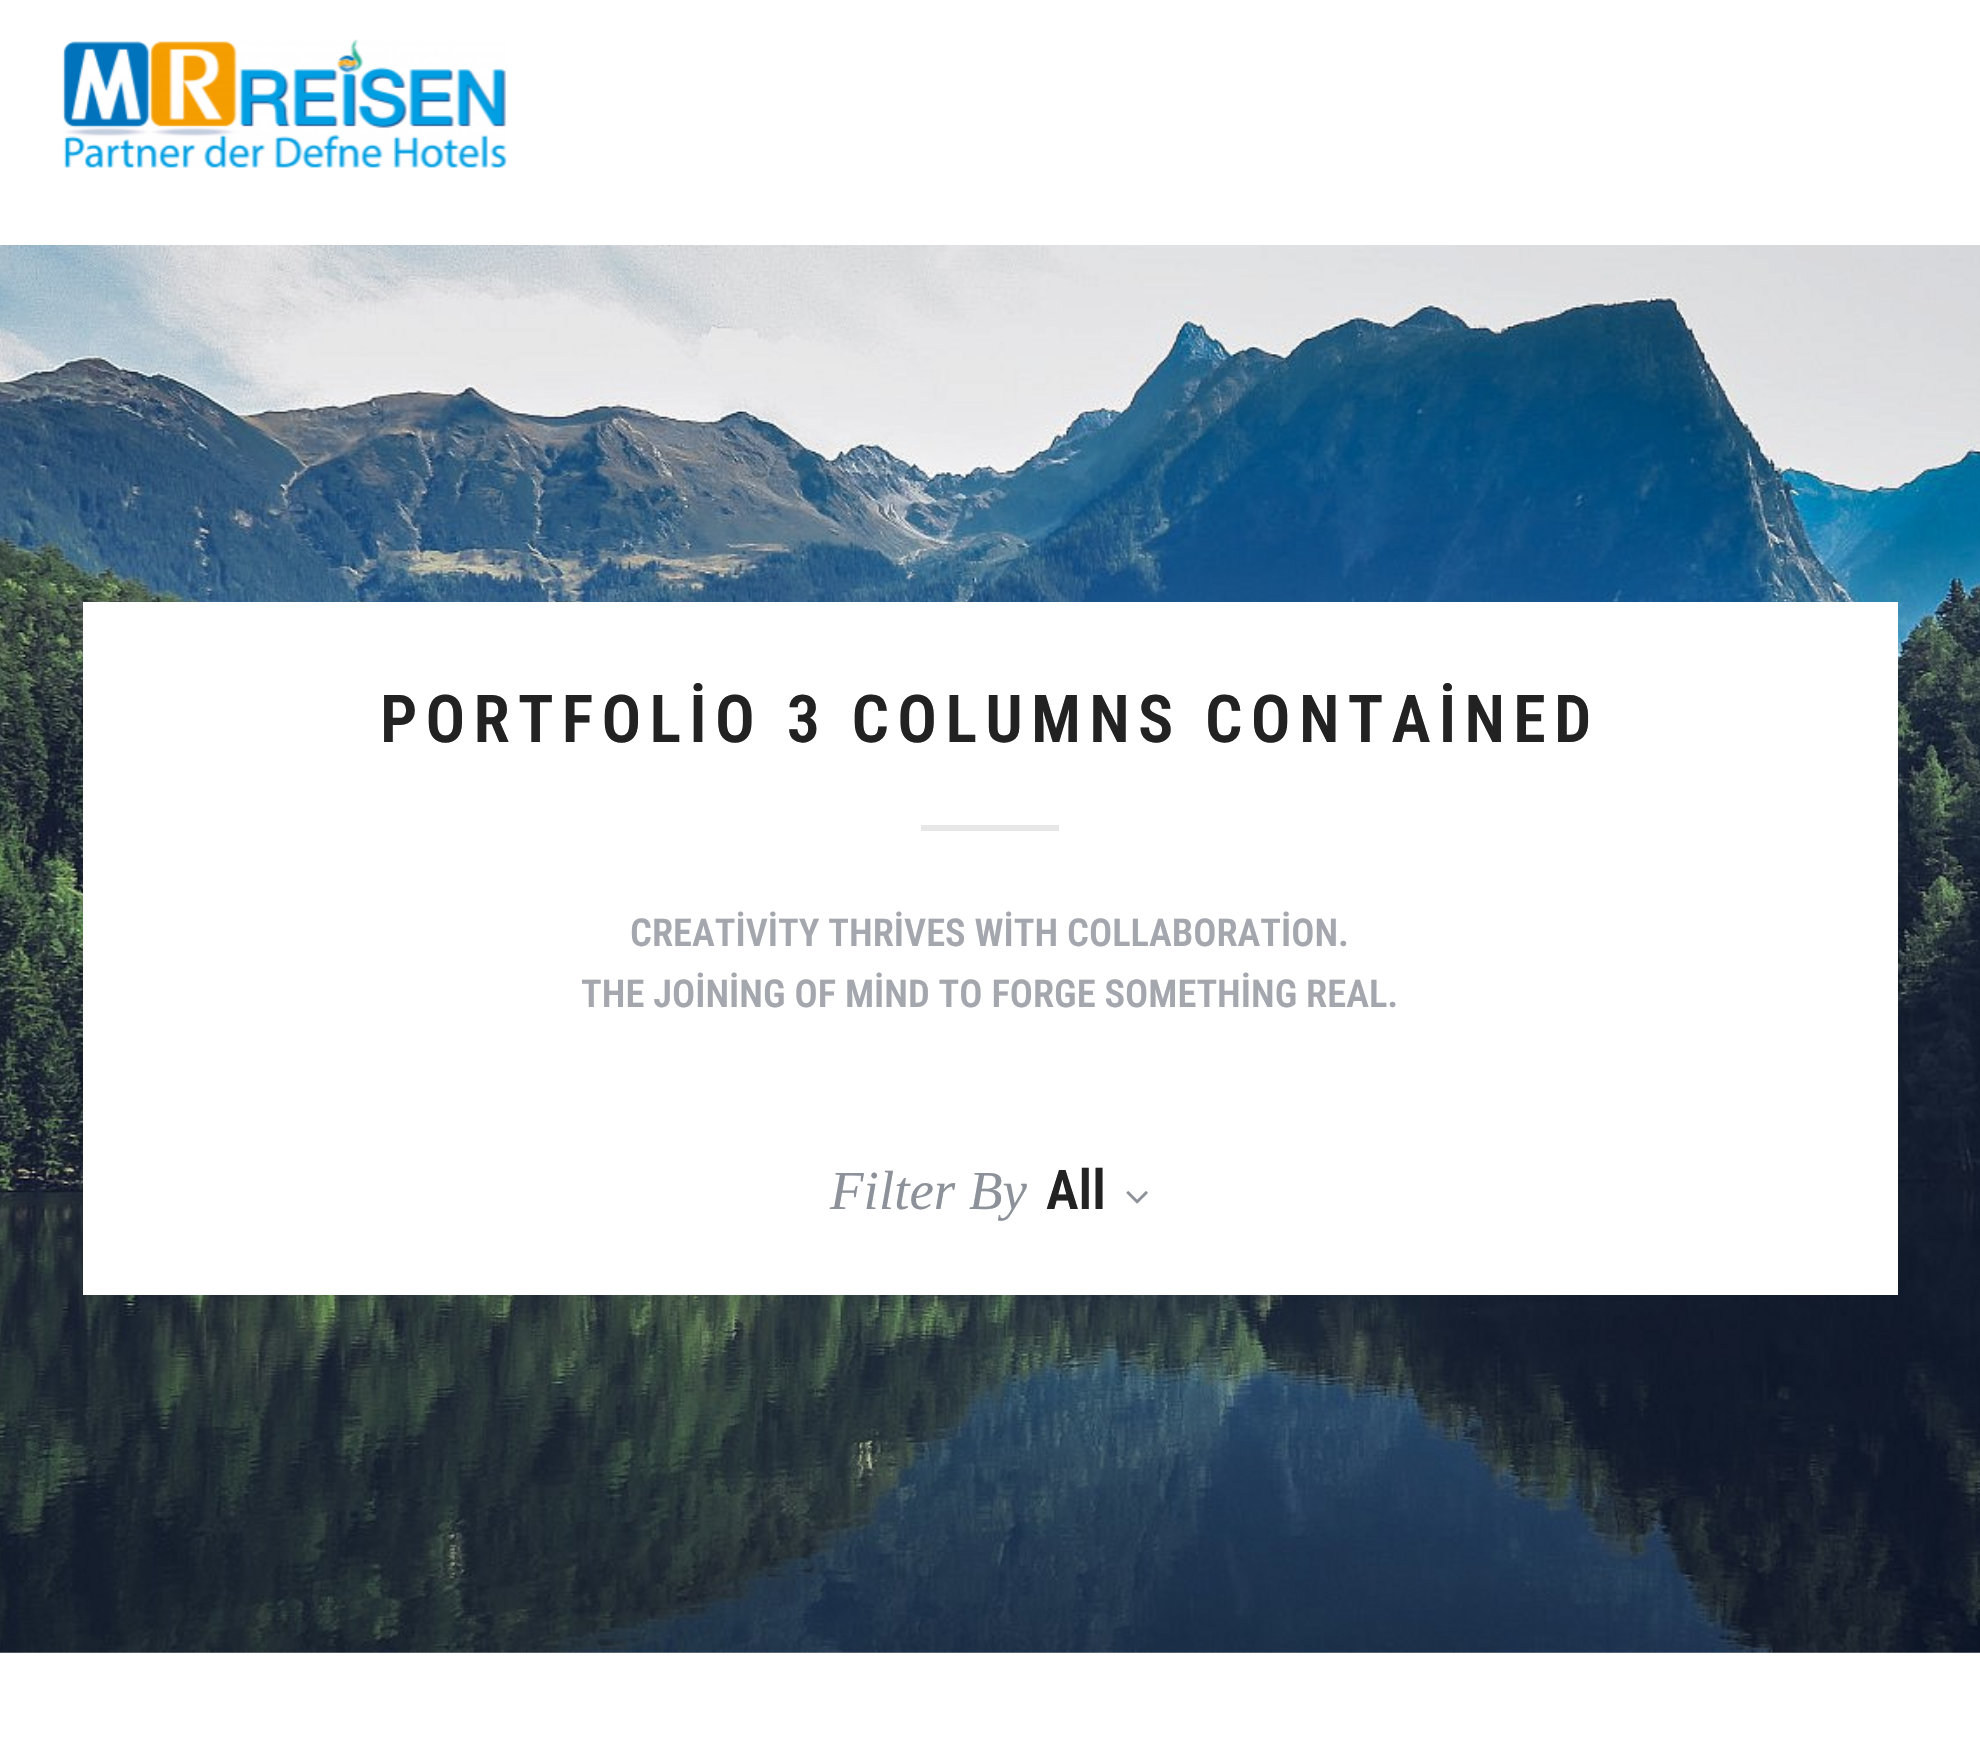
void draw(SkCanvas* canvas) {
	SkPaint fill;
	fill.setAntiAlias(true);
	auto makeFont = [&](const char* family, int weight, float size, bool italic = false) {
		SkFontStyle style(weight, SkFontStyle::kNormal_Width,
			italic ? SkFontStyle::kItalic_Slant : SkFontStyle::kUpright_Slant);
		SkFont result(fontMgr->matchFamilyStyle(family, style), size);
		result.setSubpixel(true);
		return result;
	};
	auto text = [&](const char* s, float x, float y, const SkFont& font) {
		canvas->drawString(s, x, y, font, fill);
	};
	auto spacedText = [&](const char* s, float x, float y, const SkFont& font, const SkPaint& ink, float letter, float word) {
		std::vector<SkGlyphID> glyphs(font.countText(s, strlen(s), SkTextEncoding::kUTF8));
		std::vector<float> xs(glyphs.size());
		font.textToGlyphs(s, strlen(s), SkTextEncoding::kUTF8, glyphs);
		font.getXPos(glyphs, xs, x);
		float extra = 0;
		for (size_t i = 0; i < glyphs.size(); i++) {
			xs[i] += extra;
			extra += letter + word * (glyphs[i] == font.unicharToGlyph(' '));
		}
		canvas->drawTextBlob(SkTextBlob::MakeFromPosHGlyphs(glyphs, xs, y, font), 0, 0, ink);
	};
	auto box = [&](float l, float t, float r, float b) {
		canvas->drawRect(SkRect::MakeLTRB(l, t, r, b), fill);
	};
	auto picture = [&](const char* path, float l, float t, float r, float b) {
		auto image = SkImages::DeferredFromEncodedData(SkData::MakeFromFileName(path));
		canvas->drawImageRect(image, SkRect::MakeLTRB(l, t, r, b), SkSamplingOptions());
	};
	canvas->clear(0xFFFFFFFF);
	picture("image0.png", 62, 39, 508, 168);
	picture("image1.png", 0, 245, 1980, 1653);
	fill.setColor(0xFFFFFFFF);
	box(83, 602, 1898, 1295);
	fill.setColor(0xFFE7E7E7);
	box(921, 825, 1059, 831);
	picture("image2.png", 1126, 1191, 1148, 1204);
	auto font1 = makeFont("Roboto Condensed", 600, 66);
	fill.setColor(0xFF222222);
	spacedText("PORTFOLİO 3 COLUMNS CONTAİNED", 380, 742, font1, fill, 8.25f, 0);
	auto font2 = makeFont("Roboto Condensed", 600, 38.5f);
	fill.setColor(0xFFA4A7AD);
	text("CREATİVİTY THRİVES WİTH COLLABORATİON.", 630, 946, font2);
	text("THE JOİNİNG OF MİND TO FORGE SOMETHİNG REAL.", 581, 1007, font2);
	auto font3 = makeFont("Liberation Serif", 400, 55, true);
	fill.setColor(0xFF8D9199);
	text("Filter By", 830, 1209, font3);
	auto font4 = makeFont("Roboto Condensed", 600, 55);
	fill.setColor(0xFF222222);
	text("All", 1046, 1209, font4);
}
